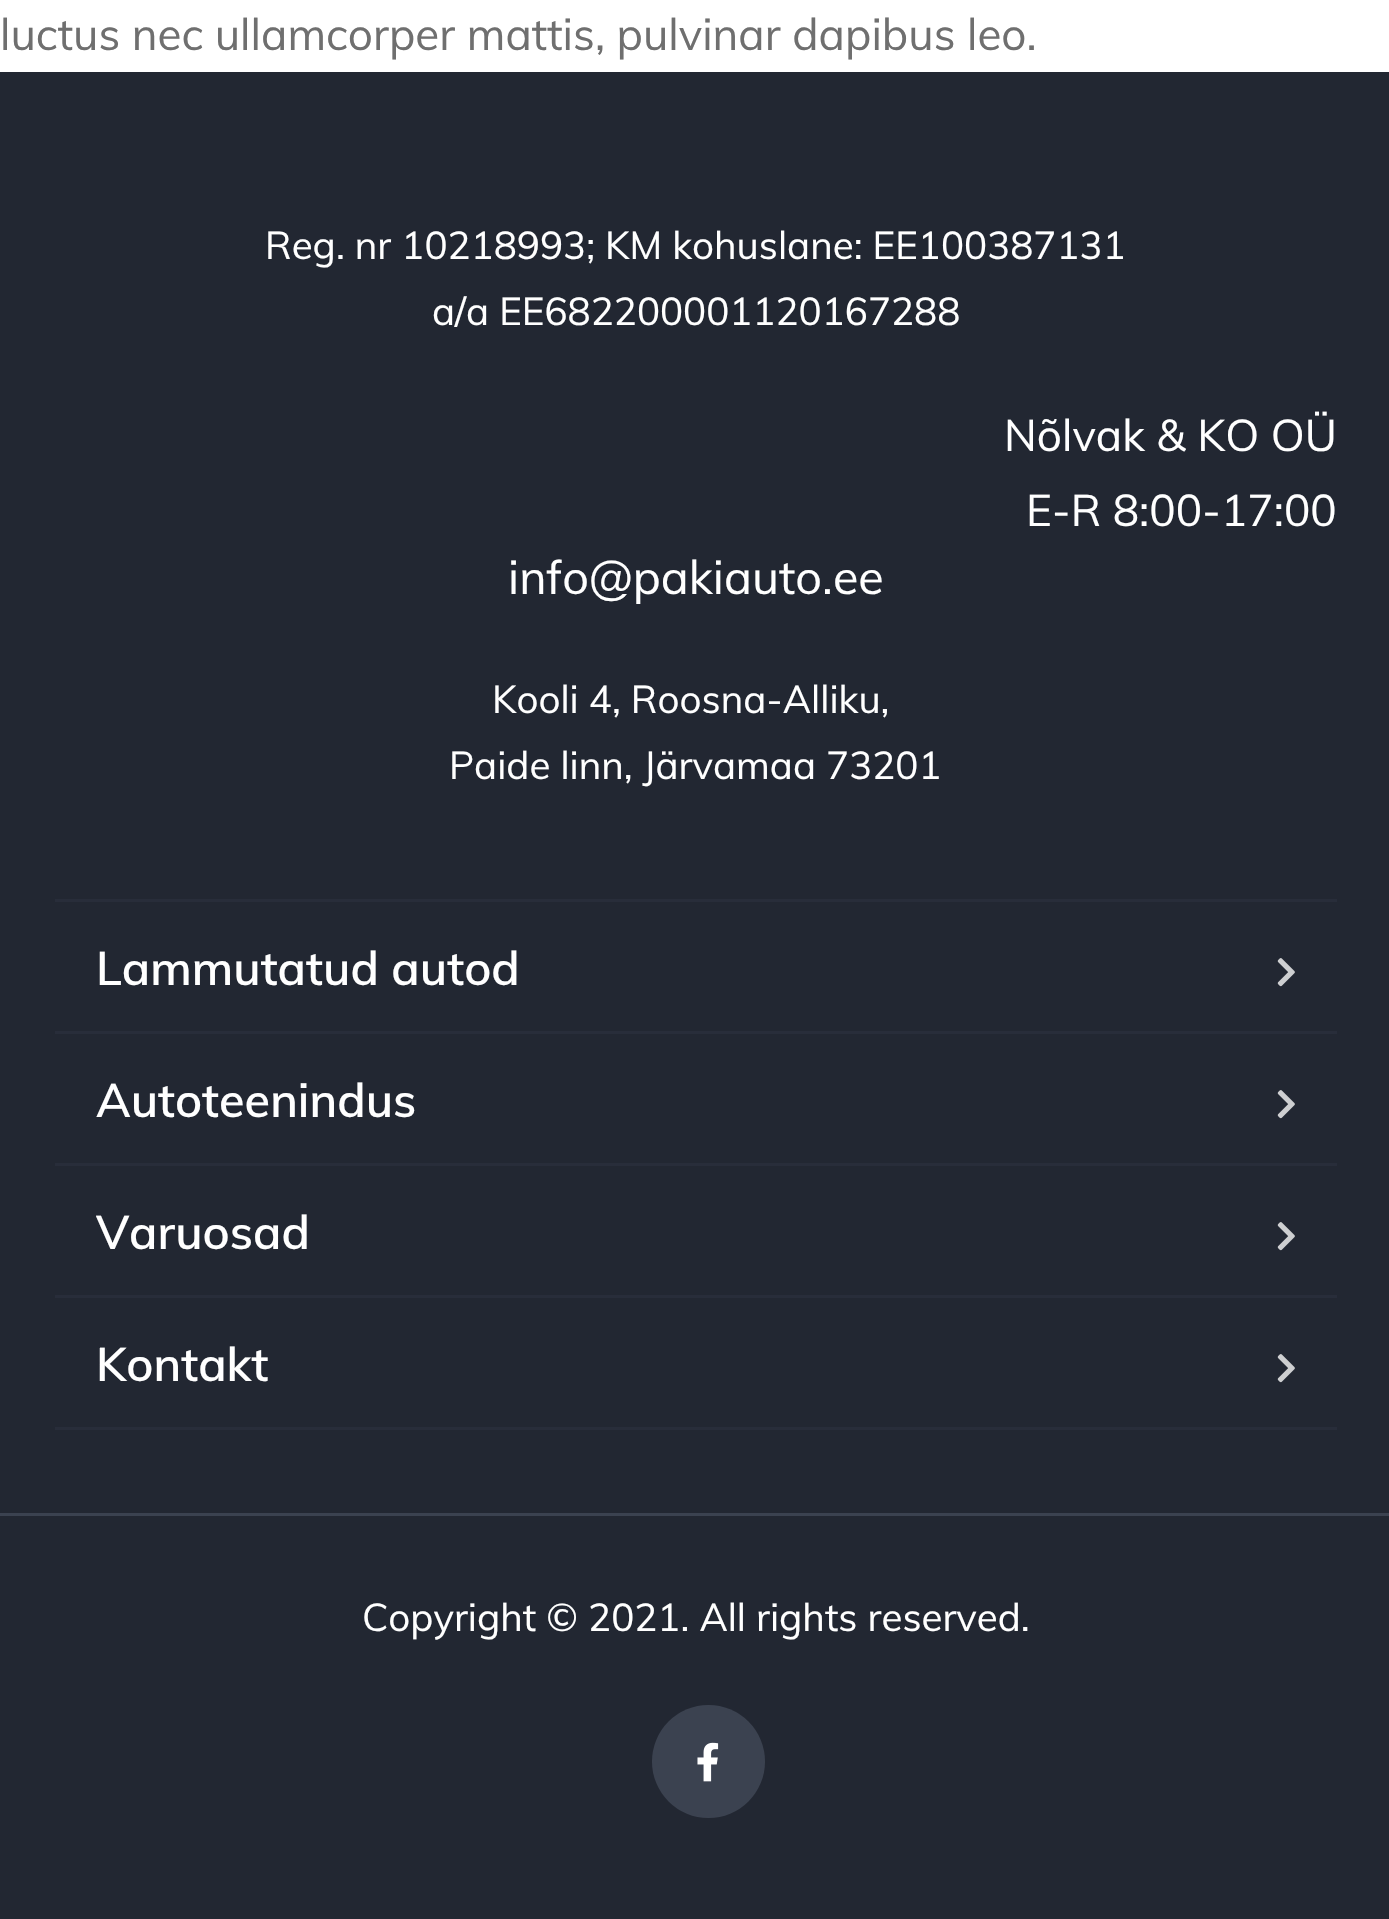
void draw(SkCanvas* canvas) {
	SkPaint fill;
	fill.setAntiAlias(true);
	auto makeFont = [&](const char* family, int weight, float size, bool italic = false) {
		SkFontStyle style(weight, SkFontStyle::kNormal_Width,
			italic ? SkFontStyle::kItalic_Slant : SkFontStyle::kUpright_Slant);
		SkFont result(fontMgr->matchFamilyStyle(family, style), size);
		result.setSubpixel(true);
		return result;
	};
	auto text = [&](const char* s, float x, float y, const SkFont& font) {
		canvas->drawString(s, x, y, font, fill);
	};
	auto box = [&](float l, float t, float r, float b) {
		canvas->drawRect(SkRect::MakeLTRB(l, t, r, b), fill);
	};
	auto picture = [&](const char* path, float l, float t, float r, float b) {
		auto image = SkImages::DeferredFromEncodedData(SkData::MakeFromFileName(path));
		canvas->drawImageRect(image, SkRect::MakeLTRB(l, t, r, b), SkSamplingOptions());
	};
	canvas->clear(0xFFFFFFFF);
	fill.setColor(0xFF222732);
	box(0, 72, 1389, 1919);
	fill.setColor(0xFF282D3A);
	box(55, 899, 1337, 902);
	picture("image0.png", 1277, 958, 1295, 987);
	box(55, 1031, 1337, 1034);
	picture("image0.png", 1277, 1090, 1295, 1119);
	box(55, 1163, 1337, 1166);
	picture("image0.png", 1277, 1222, 1295, 1251);
	box(55, 1295, 1337, 1298);
	box(55, 1427, 1337, 1430);
	picture("image0.png", 1277, 1354, 1295, 1383);
	fill.setColor(0xFF3B4250);
	box(0, 1513, 1389, 1516);
	canvas->drawCircle(708.5f, 1761.5f, 56.5f, fill);
	picture("image1.png", 697, 1742, 719, 1782);
	auto font1 = makeFont("Muli", 400, 44);
	fill.setColor(0xFF6F6F6F);
	text("luctus nec ullamcorper mattis, pulvinar dapibus leo.", 0, 50, font1);
	auto font2 = makeFont("Muli", 400, 38.5f);
	fill.setColor(0xFFFFFFFF);
	text("Reg. nr 10218993; KM kohuslane: EE100387131", 265, 259, font2);
	text("a/a EE682200001120167288", 432, 325, font2);
	text("Nõlvak & KO OÜ", 1004, 451, font1);
	text("E-R 8:00-17:00", 1026, 526, font1);
	auto font3 = makeFont("Muli", 400, 46.75f);
	text("info@pakiauto.ee", 508, 594, font3);
	text("Kooli 4, Roosna-Alliku,", 492, 713, font2);
	text("Paide linn, Järvamaa 73201", 449, 779, font2);
	auto font4 = makeFont("Muli", 600, 46.75f);
	text("Lammutatud autod", 96, 985, font4);
	text("Autoteenindus", 96, 1117, font4);
	text("Varuosad", 96, 1249, font4);
	text("Kontakt", 96, 1381, font4);
	text("Copyright © 2021. All rights reserved.", 362, 1631, font2);
}
